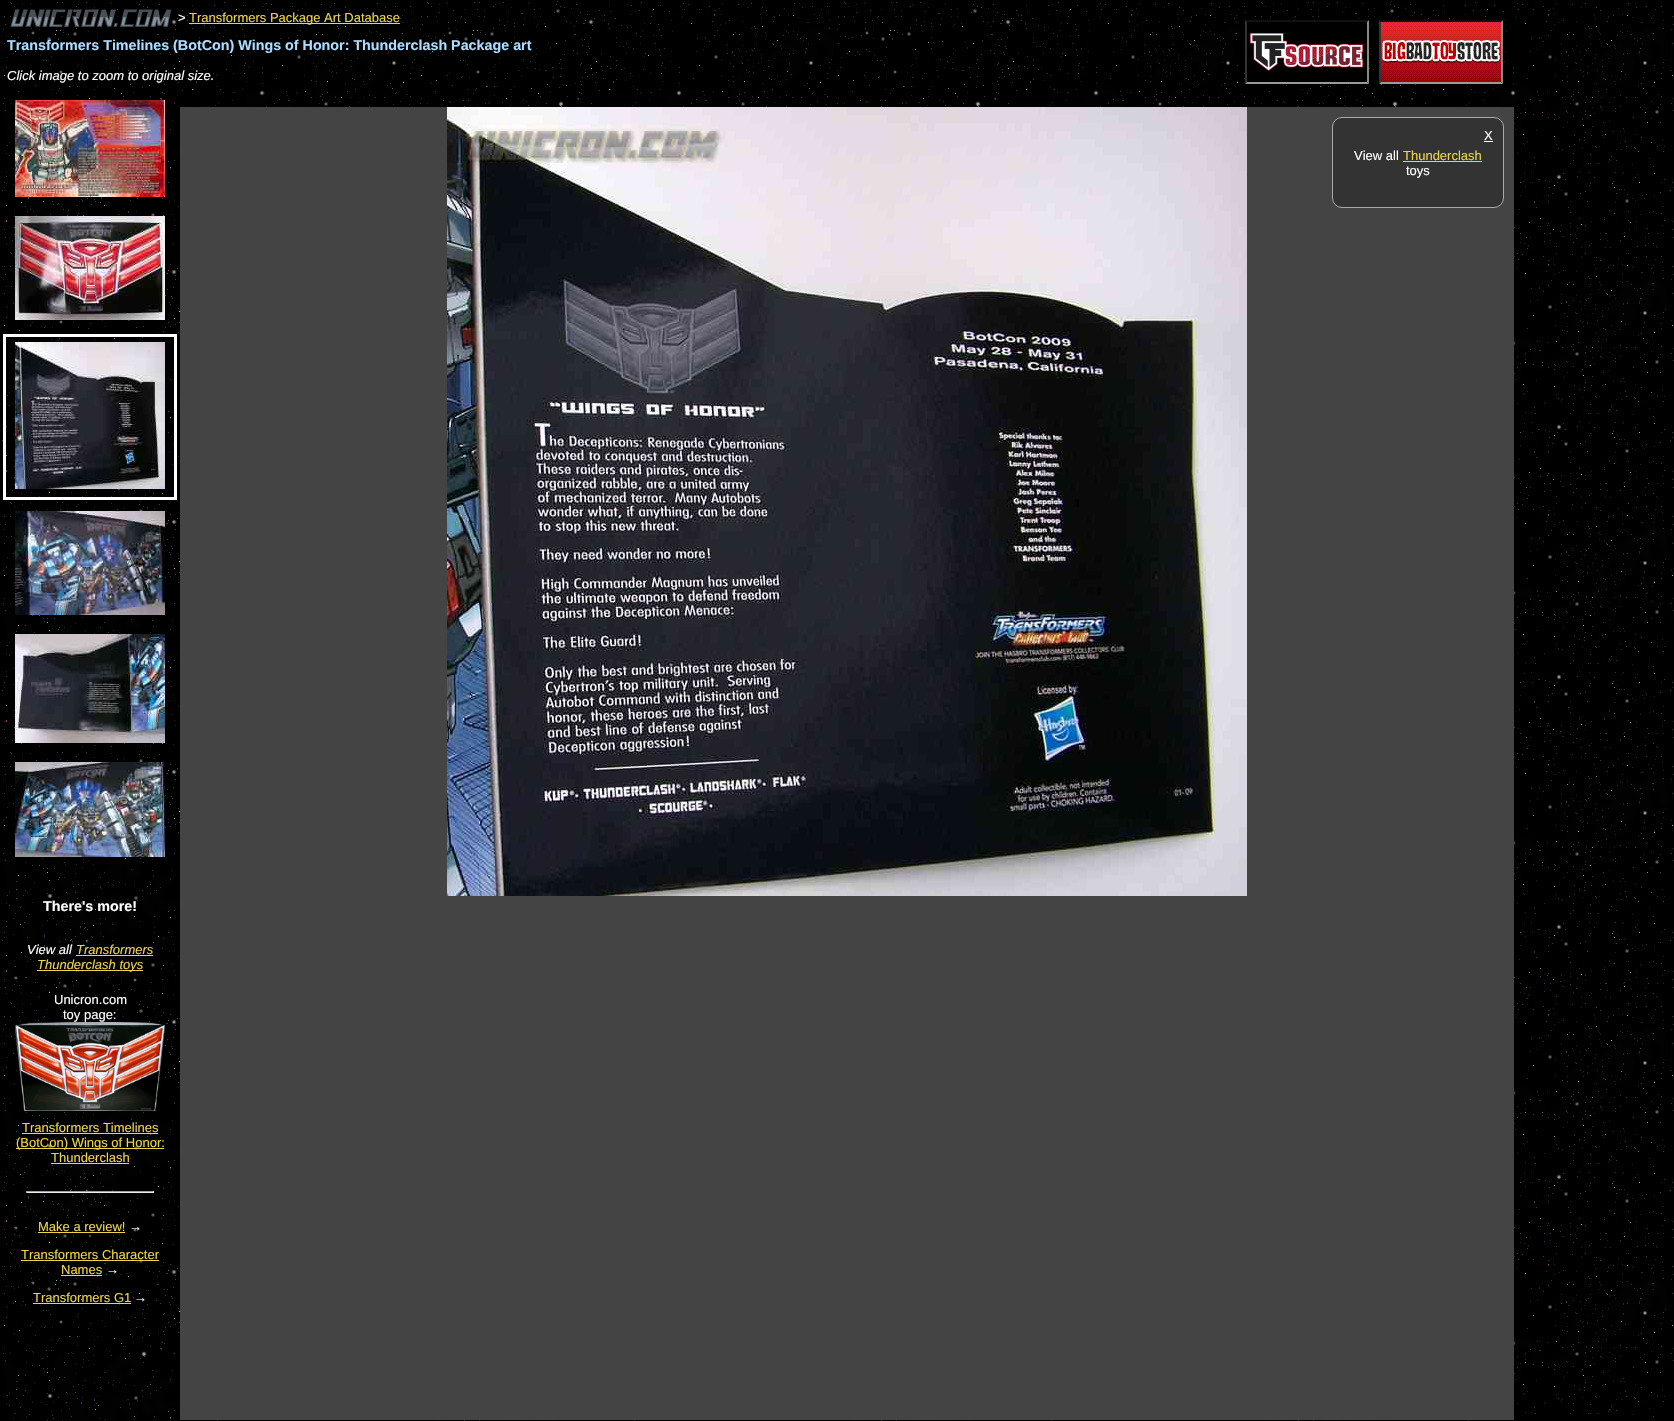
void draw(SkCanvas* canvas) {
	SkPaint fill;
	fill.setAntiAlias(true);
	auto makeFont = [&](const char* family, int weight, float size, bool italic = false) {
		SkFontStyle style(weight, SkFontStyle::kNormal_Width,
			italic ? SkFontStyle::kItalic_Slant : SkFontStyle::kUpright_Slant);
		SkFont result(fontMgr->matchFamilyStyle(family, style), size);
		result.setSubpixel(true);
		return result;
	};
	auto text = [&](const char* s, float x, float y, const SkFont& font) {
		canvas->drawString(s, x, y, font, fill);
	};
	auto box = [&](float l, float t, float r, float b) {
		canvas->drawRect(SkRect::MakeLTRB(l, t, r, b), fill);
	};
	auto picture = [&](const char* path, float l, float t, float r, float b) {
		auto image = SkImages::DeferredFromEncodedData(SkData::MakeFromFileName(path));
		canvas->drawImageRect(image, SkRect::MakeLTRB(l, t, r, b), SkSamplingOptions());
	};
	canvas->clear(0xFF000000);
	picture("image0.png", 2, 1, 1674, 1421);
	picture("image1.png", 10, 8, 172, 28);
	fill.setColor(0xFFEDD448);
	box(189, 23, 400, 24);
	fill.setColor(0xFF111111);
	canvas->drawPath(SkPathBuilder().moveTo(1245, 20).lineTo(1369, 20).lineTo(1367, 22).lineTo(1247, 22).close().detach(), fill);
	fill.setColor(0xFF888888);
	canvas->drawPath(SkPathBuilder().moveTo(1369, 20).lineTo(1369, 84).lineTo(1367, 82).lineTo(1367, 22).close().detach(), fill);
	fill.setColor(0xFF999999);
	canvas->drawPath(SkPathBuilder().moveTo(1369, 84).lineTo(1245, 84).lineTo(1247, 82).lineTo(1367, 82).close().detach(), fill);
	fill.setColor(0xFF333333);
	canvas->drawPath(SkPathBuilder().moveTo(1245, 84).lineTo(1245, 20).lineTo(1247, 22).lineTo(1247, 82).close().detach(), fill);
	fill.setColor(0xFF111111);
	canvas->drawPath(SkPathBuilder().moveTo(1379, 20).lineTo(1503, 20).lineTo(1501, 22).lineTo(1381, 22).close().detach(), fill);
	picture("image2.png", 1248, 22, 1367, 81);
	fill.setColor(0xFF888888);
	canvas->drawPath(SkPathBuilder().moveTo(1503, 20).lineTo(1503, 84).lineTo(1501, 82).lineTo(1501, 22).close().detach(), fill);
	fill.setColor(0xFF999999);
	canvas->drawPath(SkPathBuilder().moveTo(1503, 84).lineTo(1379, 84).lineTo(1381, 82).lineTo(1501, 82).close().detach(), fill);
	fill.setColor(0xFF333333);
	canvas->drawPath(SkPathBuilder().moveTo(1379, 84).lineTo(1379, 20).lineTo(1381, 22).lineTo(1381, 82).close().detach(), fill);
	picture("image3.png", 1381, 22, 1501, 82);
	fill.setColor(0xFF444444);
	box(180, 107, 1514, 1420);
	picture("image4.png", 447, 107, 1247, 896);
	fill.setColor(0xFF333333);
	canvas->drawRoundRect(SkRect::MakeLTRB(1332.5f, 117.5f, 1503.5f, 207.5f), 9.5f, 9.5f, fill);
	fill.setStyle(SkPaint::kStroke_Style);
	fill.setStrokeWidth(1);
	fill.setColor(0xFFAAAAAA);
	canvas->drawRoundRect(SkRect::MakeLTRB(1332.5f, 117.5f, 1503.5f, 207.5f), 9.5f, 9.5f, fill);
	fill.setStyle(SkPaint::kFill_Style);
	fill.setColor(0xFFFFFFFF);
	box(1484, 141, 1493, 142);
	fill.setColor(0xFFEDD448);
	box(1403, 161, 1482, 162);
	picture("image5.png", 15, 100, 165, 197);
	picture("image6.png", 15, 216, 165, 320);
	fill.setStyle(SkPaint::kStroke_Style);
	fill.setStrokeWidth(3);
	fill.setColor(0xFFFFFFFF);
	canvas->drawRect(SkRect::MakeLTRB(4.5f, 335.5f, 175.5f, 498.5f), fill);
	picture("image7.png", 15, 342, 165, 489);
	picture("image8.png", 15, 511, 165, 615);
	picture("image9.png", 15, 634, 165, 743);
	picture("image10.png", 15, 762, 165, 857);
	fill.setStyle(SkPaint::kFill_Style);
	fill.setColor(0xFFEDD448);
	box(76, 955, 153, 956);
	box(37, 970, 143, 971);
	picture("image11.png", 15, 1022, 165, 1111);
	box(22, 1133, 158, 1134);
	box(16, 1148, 164, 1149);
	box(51, 1163, 129, 1164);
	fill.setColor(0xFF9F9F9F);
	box(26, 1191, 154, 1192);
	fill.setColor(0xFFEEEEEE);
	box(153, 1191, 154, 1193);
	box(26, 1192, 154, 1193);
	fill.setColor(0xFF9F9F9F);
	box(26, 1191, 27, 1193);
	fill.setColor(0xFFEDD448);
	box(38, 1232, 125, 1233);
	box(21, 1260, 159, 1261);
	box(61, 1275, 102, 1276);
	box(33, 1303, 131, 1304);
	auto font1 = makeFont("Liberation Sans", 400, 13);
	fill.setColor(0xFFFFFFFF);
	text(">", 178, 22, font1);
	fill.setColor(0xFFEDD448);
	text("Transformers Package Art Database", 189, 22, font1);
	auto font2 = makeFont("Liberation Sans", 700, 14.3f);
	fill.setColor(0xFFAADDFF);
	text("Transformers Timelines (BotCon) Wings of Honor: Thunderclash Package art", 7, 50, font2);
	auto font3 = makeFont("Liberation Sans", 400, 13, true);
	fill.setColor(0xFFFFFFFF);
	text("Click image to zoom to original size.", 7, 80, font3);
	text("X", 1484, 140, font1);
	text("View all", 1354, 160, font1);
	fill.setColor(0xFFEDD448);
	text("Thunderclash", 1403, 160, font1);
	fill.setColor(0xFFFFFFFF);
	text("toys", 1406, 175, font1);
	text("There's more!", 43, 911, font2);
	text("View all", 27, 954, font3);
	fill.setColor(0xFFEDD448);
	text("Transformers", 76, 954, font3);
	text("Thunderclash toys", 37, 969, font3);
	fill.setColor(0xFFFFFFFF);
	text("Unicron.com", 54, 1004, font1);
	text("toy page:", 63, 1019, font1);
	fill.setColor(0xFFEDD448);
	text("Transformers Timelines", 22, 1132, font1);
	text("(BotCon) Wings of Honor:", 16, 1147, font1);
	text("Thunderclash", 51, 1162, font1);
	text("Make a review!", 38, 1231, font1);
	fill.setColor(0xFFFFFFFF);
	text("→", 129, 1231, font1);
	fill.setColor(0xFFEDD448);
	text("Transformers Character", 21, 1259, font1);
	text("Names", 61, 1274, font1);
	fill.setColor(0xFFFFFFFF);
	text("→", 106, 1274, font1);
	fill.setColor(0xFFEDD448);
	text("Transformers G1", 33, 1302, font1);
	fill.setColor(0xFFFFFFFF);
	text("→", 134, 1302, font1);
}
